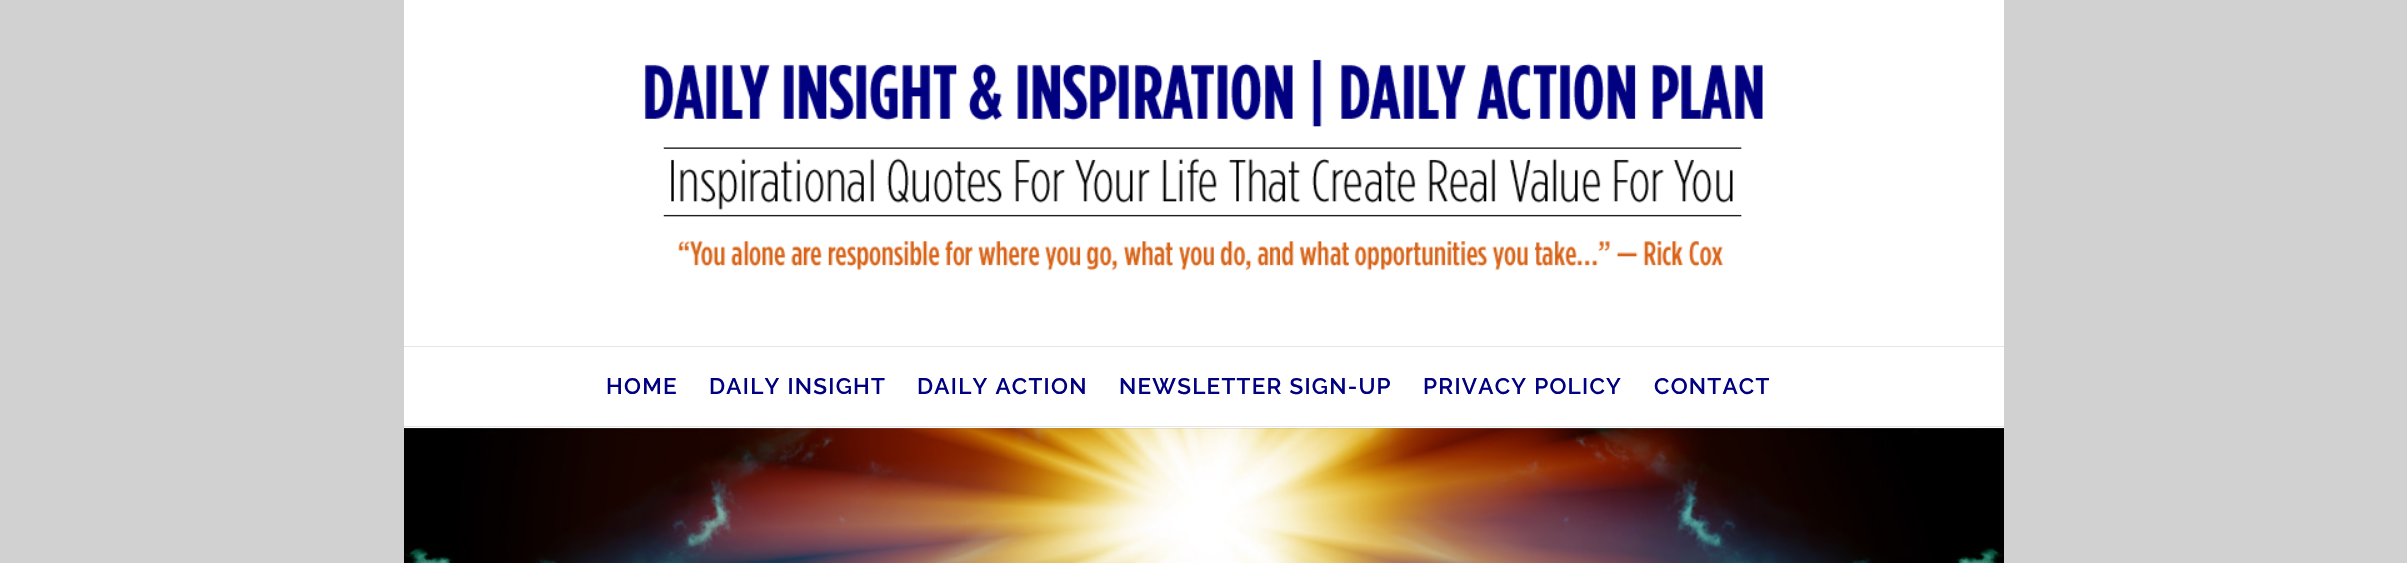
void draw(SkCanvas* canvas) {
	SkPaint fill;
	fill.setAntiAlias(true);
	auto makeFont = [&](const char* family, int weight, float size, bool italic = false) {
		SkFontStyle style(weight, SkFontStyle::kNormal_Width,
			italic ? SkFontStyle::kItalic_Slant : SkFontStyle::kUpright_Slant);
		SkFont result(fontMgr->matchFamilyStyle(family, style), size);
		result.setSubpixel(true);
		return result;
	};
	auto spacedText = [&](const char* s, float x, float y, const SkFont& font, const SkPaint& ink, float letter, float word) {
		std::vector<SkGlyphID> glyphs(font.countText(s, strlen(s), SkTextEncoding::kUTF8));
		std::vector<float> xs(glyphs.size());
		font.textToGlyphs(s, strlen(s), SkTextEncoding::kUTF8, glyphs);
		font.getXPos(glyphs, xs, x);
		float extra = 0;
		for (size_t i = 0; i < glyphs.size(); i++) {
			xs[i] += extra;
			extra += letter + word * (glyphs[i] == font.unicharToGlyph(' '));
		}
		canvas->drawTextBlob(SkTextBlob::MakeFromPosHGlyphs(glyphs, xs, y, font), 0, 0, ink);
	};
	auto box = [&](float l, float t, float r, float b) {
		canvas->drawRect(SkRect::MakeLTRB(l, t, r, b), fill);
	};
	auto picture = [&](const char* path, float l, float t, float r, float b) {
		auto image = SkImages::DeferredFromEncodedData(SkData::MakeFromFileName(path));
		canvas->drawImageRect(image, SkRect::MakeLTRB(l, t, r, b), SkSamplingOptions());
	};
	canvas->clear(0xFFD1D1D1);
	fill.setColor(0xFFFFFFFF);
	box(404, 0, 2004, 428);
	fill.setColor(0xFFE5E5E5);
	box(404, 346, 2004, 347);
	picture("image0.png", 644, 59, 1763, 271);
	box(404, 426, 2004, 427);
	picture("image1.png", 404, 428, 2004, 563);
	auto font1 = makeFont("Raleway", 600, 22.5f);
	fill.setColor(0xFF000080);
	spacedText("HOME", 606, 394, font1, fill, 1.25f, 0);
	spacedText("DAILY INSIGHT", 709, 394, font1, fill, 1.25f, 0);
	spacedText("DAILY ACTION", 917, 394, font1, fill, 1.25f, 0);
	spacedText("NEWSLETTER SIGN-UP", 1119, 394, font1, fill, 1.25f, 0);
	spacedText("PRIVACY POLICY", 1423, 394, font1, fill, 1.25f, 0);
	spacedText("CONTACT", 1654, 394, font1, fill, 1.25f, 0);
}
